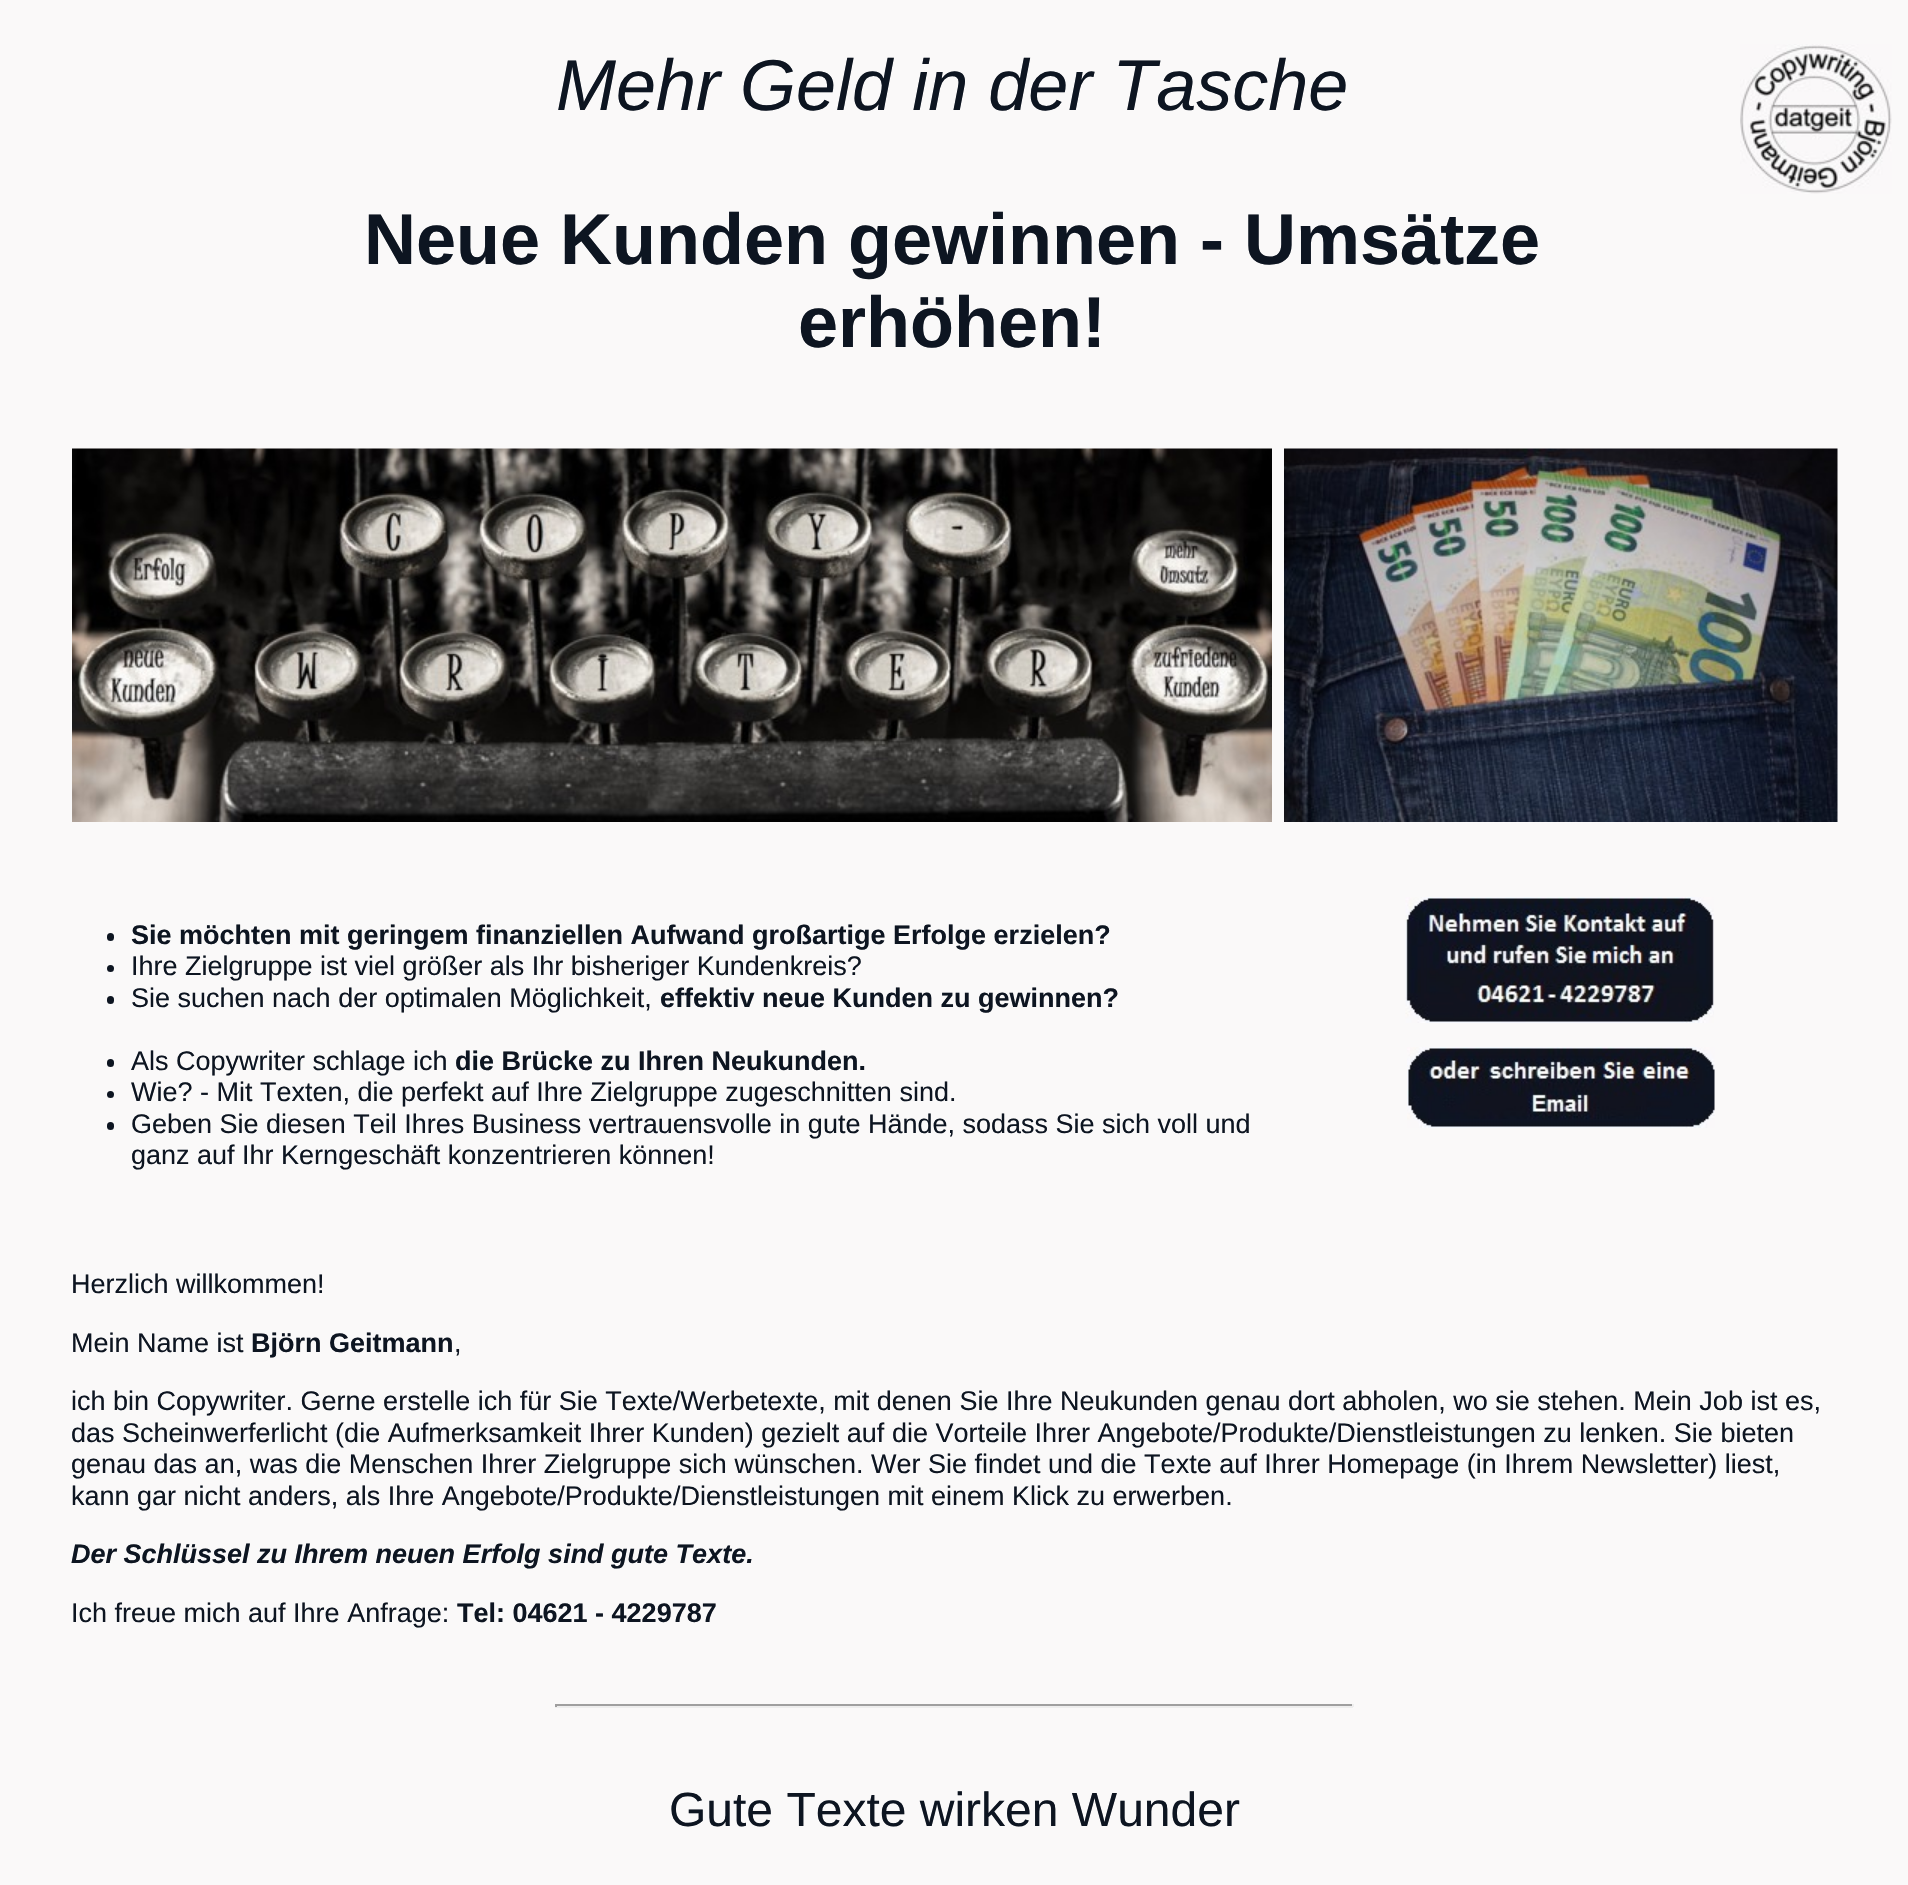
void draw(SkCanvas* canvas) {
	SkPaint fill;
	fill.setAntiAlias(true);
	auto makeFont = [&](const char* family, int weight, float size, bool italic = false) {
		SkFontStyle style(weight, SkFontStyle::kNormal_Width,
			italic ? SkFontStyle::kItalic_Slant : SkFontStyle::kUpright_Slant);
		SkFont result(fontMgr->matchFamilyStyle(family, style), size);
		result.setSubpixel(true);
		return result;
	};
	auto text = [&](const char* s, float x, float y, const SkFont& font) {
		canvas->drawString(s, x, y, font, fill);
	};
	auto box = [&](float l, float t, float r, float b) {
		canvas->drawRect(SkRect::MakeLTRB(l, t, r, b), fill);
	};
	auto roundBox = [&](float l, float t, float r, float b, float radius) {
		canvas->drawRoundRect(SkRect::MakeLTRB(l, t, r, b), radius, radius, fill);
	};
	auto picture = [&](const char* path, float l, float t, float r, float b) {
		auto image = SkImages::DeferredFromEncodedData(SkData::MakeFromFileName(path));
		canvas->drawImageRect(image, SkRect::MakeLTRB(l, t, r, b), SkSamplingOptions());
	};
	canvas->clear(0xFFFAF9F9);
	picture("image0.png", 1740, 44, 1892, 194);
	picture("image1.png", 72, 448, 1272, 822);
	fill.setColor(0xFF0D1521);
	roundBox(107, 933, 114, 941, 3.5f);
	canvas->drawCircle(110.5f, 968.5f, 3.5f, fill);
	roundBox(107, 996, 114, 1004, 3.5f);
	roundBox(107, 1059, 114, 1067, 3.5f);
	canvas->drawCircle(110.5f, 1094.5f, 3.5f, fill);
	roundBox(107, 1122, 114, 1130, 3.5f);
	picture("image2.png", 1284, 448, 1838, 822);
	picture("image3.png", 1405, 897, 1714, 1023);
	picture("image4.png", 1407, 1047, 1715, 1128);
	fill.setColor(0xFF9F9F9F);
	box(555, 1704, 1353, 1706);
	fill.setColor(0xFFEEEEEE);
	box(1352, 1704, 1354, 1707);
	box(555, 1706, 1353, 1708);
	fill.setColor(0xFF9F9F9F);
	box(555, 1704, 557, 1707);
	auto font1 = makeFont("Liberation Sans", 400, 72, true);
	fill.setColor(0xFF0D1521);
	text("Mehr Geld in der Tasche", 556, 110, font1);
	auto font2 = makeFont("Liberation Sans", 700, 72);
	text("Neue Kunden gewinnen - Umsätze", 364, 264, font2);
	text("erhöhen!", 798, 347, font2);
	auto font3 = makeFont("Liberation Sans", 700, 27);
	text("Sie möchten mit geringem finanziellen Aufwand großartige Erfolge erzielen?", 131, 944, font3);
	auto font4 = makeFont("Liberation Sans", 400, 27);
	text("Ihre Zielgruppe ist viel größer als Ihr bisheriger Kundenkreis?", 131, 975, font4);
	text("Sie suchen nach der optimalen Möglichkeit,", 131, 1007, font4);
	text("effektiv neue Kunden zu gewinnen?", 660, 1007, font3);
	text("Als Copywriter schlage ich", 131, 1070, font4);
	text("die Brücke zu Ihren Neukunden.", 455, 1070, font3);
	text("Wie? - Mit Texten, die perfekt auf Ihre Zielgruppe zugeschnitten sind.", 131, 1101, font4);
	text("Geben Sie diesen Teil Ihres Business vertrauensvolle in gute Hände, sodass Sie sich voll und", 131, 1133, font4);
	text("ganz auf Ihr Kerngeschäft konzentrieren können!", 131, 1164, font4);
	text("Herzlich willkommen!", 71, 1293, font4);
	text("Mein Name ist", 71, 1352, font4);
	text("Björn Geitmann", 251, 1352, font3);
	text(",", 454, 1352, font4);
	text("ich bin Copywriter. Gerne erstelle ich für Sie Texte/Werbetexte, mit denen Sie Ihre Neukunden genau dort abholen, wo sie stehen. Mein Job ist es,", 71, 1410, font4);
	text("das Scheinwerferlicht (die Aufmerksamkeit Ihrer Kunden) gezielt auf die Vorteile Ihrer Angebote/Produkte/Dienstleistungen zu lenken. Sie bieten", 71, 1442, font4);
	text("genau das an, was die Menschen Ihrer Zielgruppe sich wünschen. Wer Sie findet und die Texte auf Ihrer Homepage (in Ihrem Newsletter) liest,", 71, 1473, font4);
	text("kann gar nicht anders, als Ihre Angebote/Produkte/Dienstleistungen mit einem Klick zu erwerben.", 71, 1505, font4);
	auto font5 = makeFont("Liberation Sans", 700, 27, true);
	text("Der Schlüssel zu Ihrem neuen Erfolg sind gute Texte.", 71, 1563, font5);
	text("Ich freue mich auf Ihre Anfrage:", 71, 1622, font4);
	text("Tel: 04621 - 4229787", 457, 1622, font3);
	auto font6 = makeFont("Liberation Sans", 400, 48);
	text("Gute Texte wirken Wunder", 669, 1826, font6);
}
